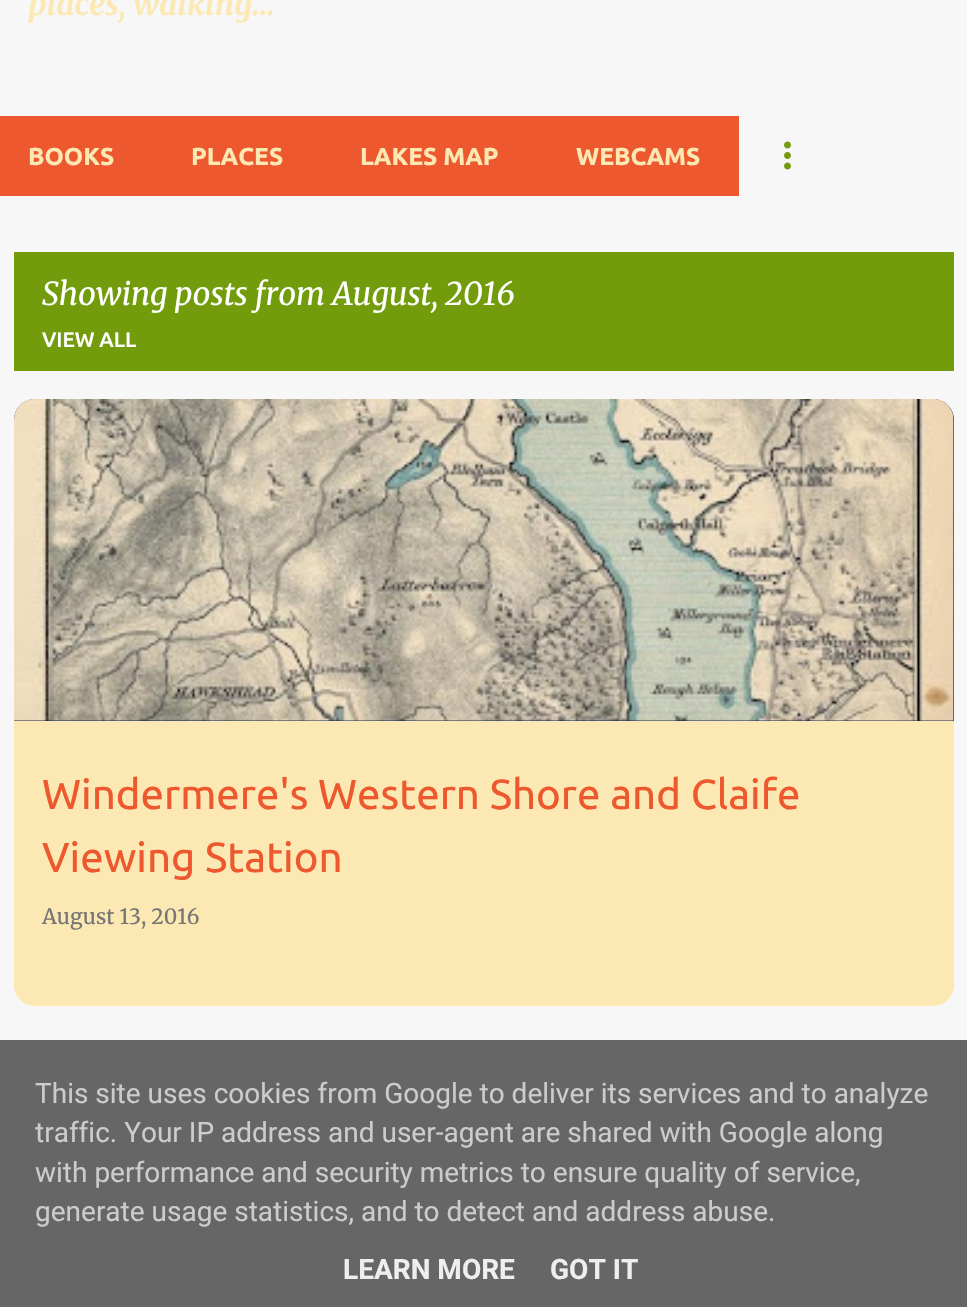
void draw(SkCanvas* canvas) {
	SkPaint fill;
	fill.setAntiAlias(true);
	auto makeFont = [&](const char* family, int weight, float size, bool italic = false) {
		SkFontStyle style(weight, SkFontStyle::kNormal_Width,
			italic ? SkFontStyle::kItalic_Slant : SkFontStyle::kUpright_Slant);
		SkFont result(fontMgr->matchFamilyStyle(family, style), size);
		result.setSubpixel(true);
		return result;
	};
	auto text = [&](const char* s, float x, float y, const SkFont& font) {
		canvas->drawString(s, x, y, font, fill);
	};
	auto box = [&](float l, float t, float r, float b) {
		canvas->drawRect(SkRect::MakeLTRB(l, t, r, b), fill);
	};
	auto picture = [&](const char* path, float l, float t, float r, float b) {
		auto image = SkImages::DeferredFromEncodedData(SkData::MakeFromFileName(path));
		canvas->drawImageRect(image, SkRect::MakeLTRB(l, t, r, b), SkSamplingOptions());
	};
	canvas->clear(0xFFF7F7F7);
	fill.setColor(0xFFEE582E);
	box(0, 116, 739, 196);
	picture("image0.png", 784, 141, 791, 170);
	fill.setColor(0xFF729C0B);
	box(14, 252, 954, 371);
	fill.setColor(0xFF03174D);
	canvas->drawPath(SkPathBuilder().moveTo(35, 399).lineTo(933, 399).cubicTo(944.5f, 399, 954, 408.5f, 954, 420).lineTo(954, 721).lineTo(14, 721).lineTo(14, 420).cubicTo(14, 408.5f, 23.5f, 399, 35, 399).close().detach(), fill);
	picture("image1.png", 14, 399, 954, 721);
	fill.setColor(0xFFFCE8B2);
	canvas->drawPath(SkPathBuilder().moveTo(14, 721).lineTo(954, 721).lineTo(954, 985).cubicTo(954, 996.5f, 944.5f, 1006, 933, 1006).lineTo(35, 1006).cubicTo(23.5f, 1006, 14, 996.5f, 14, 985).close().detach(), fill);
	fill.setColor(0xFF666666);
	box(0, 1040, 967, 1307);
	auto font1 = makeFont("Merriweather", 700, 31.5f, true);
	fill.setColor(0xFFFCE8B2);
	text("places, walking...", 28, 15, font1);
	auto font2 = makeFont("Ubuntu", 700, 24.5f);
	text("BOOKS", 28, 165, font2);
	text("PLACES", 191, 165, font2);
	text("LAKES MAP", 360, 165, font2);
	text("WEBCAMS", 576, 165, font2);
	auto font3 = makeFont("Merriweather", 400, 31.5f, true);
	fill.setColor(0xFFFFFFFF);
	text("Showing posts from August, 2016", 42, 305, font3);
	auto font4 = makeFont("Ubuntu", 500, 21);
	text("VIEW ALL", 42, 347, font4);
	auto font5 = makeFont("Ubuntu", 400, 42);
	fill.setColor(0xFFEE582E);
	text("Windermere's Western Shore and Claife", 42, 809, font5);
	text("Viewing Station", 42, 872, font5);
	auto font6 = makeFont("Merriweather", 300, 21);
	fill.setColor(0xFF757575);
	text("August 13, 2016", 42, 924, font6);
	auto font7 = makeFont("Roboto", 400, 28);
	fill.setColor(0xFFCCCCCC);
	text("This site uses cookies from Google to deliver its services and to analyze", 35, 1103, font7);
	text("traffic. Your IP address and user-agent are shared with Google along", 35, 1142, font7);
	text("with performance and security metrics to ensure quality of service,", 35, 1182, font7);
	text("generate usage statistics, and to detect and address abuse.", 35, 1221, font7);
	auto font8 = makeFont("Roboto", 700, 28);
	fill.setColor(0xFFEEEEEE);
	text("LEARN MORE", 343, 1279, font8);
	text("GOT IT", 550, 1279, font8);
}
